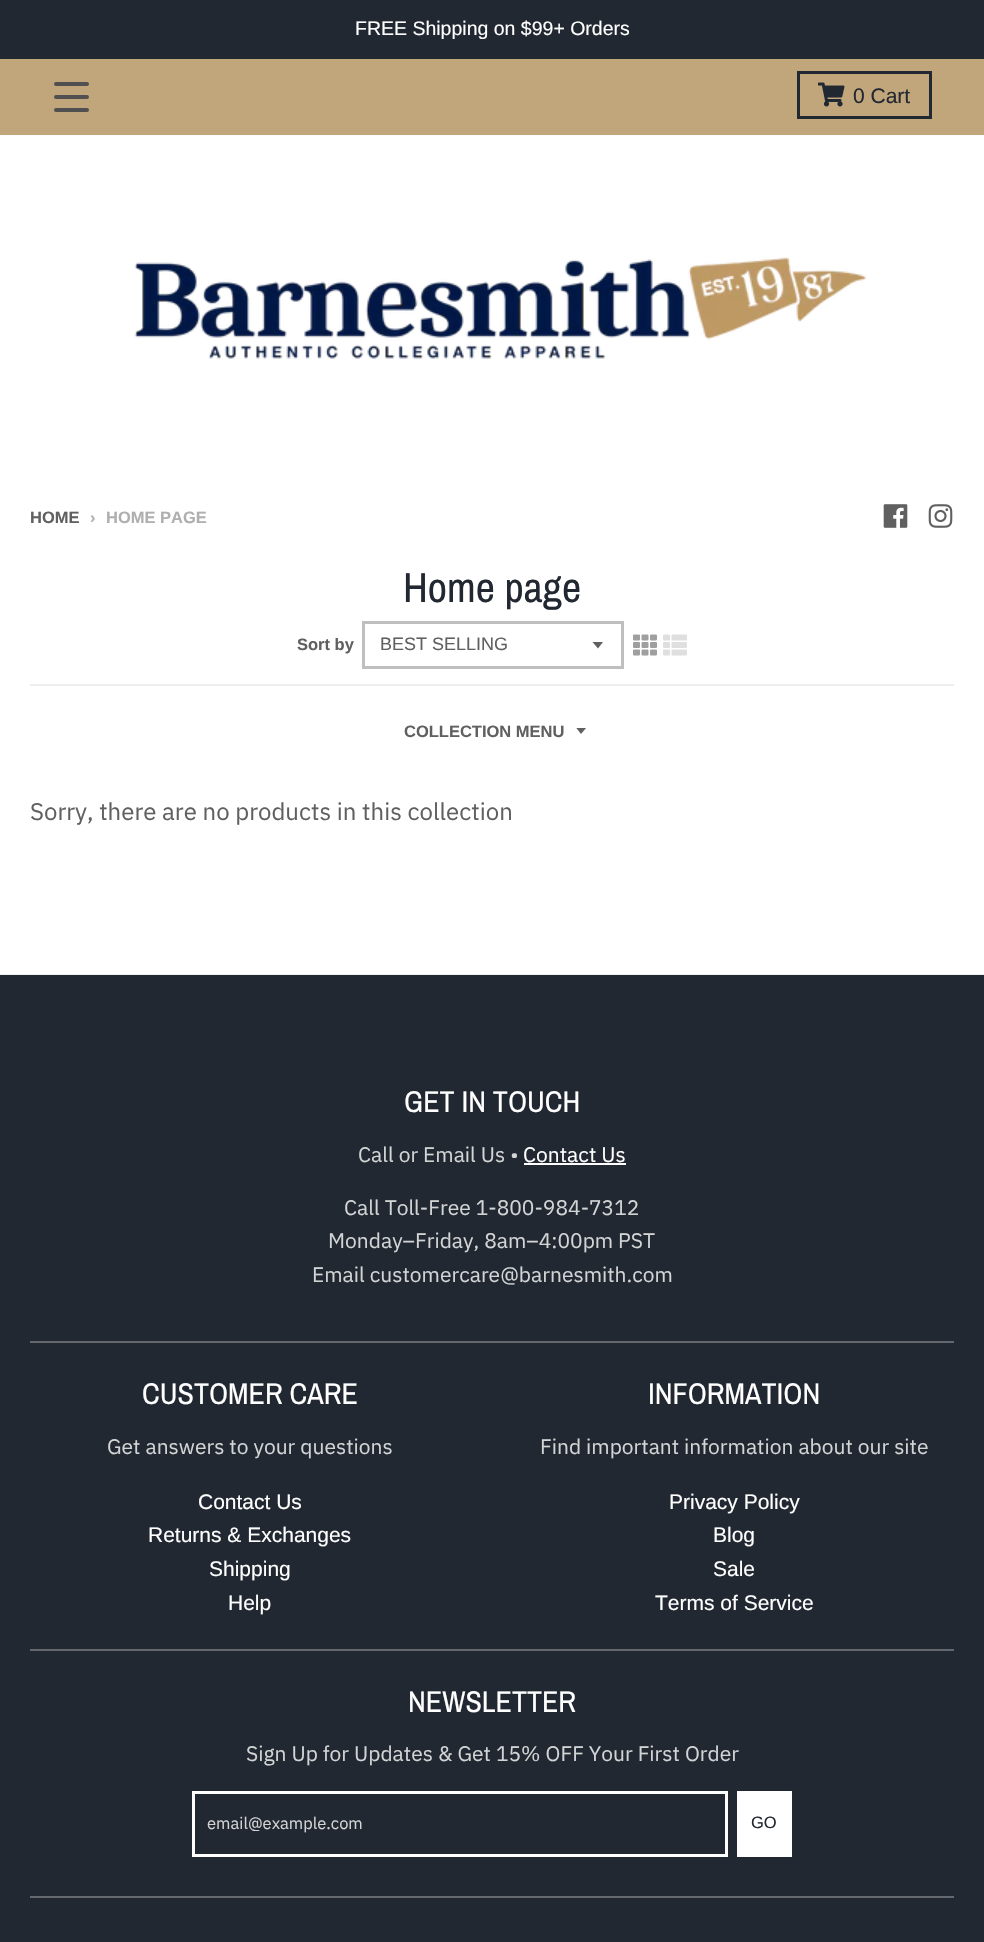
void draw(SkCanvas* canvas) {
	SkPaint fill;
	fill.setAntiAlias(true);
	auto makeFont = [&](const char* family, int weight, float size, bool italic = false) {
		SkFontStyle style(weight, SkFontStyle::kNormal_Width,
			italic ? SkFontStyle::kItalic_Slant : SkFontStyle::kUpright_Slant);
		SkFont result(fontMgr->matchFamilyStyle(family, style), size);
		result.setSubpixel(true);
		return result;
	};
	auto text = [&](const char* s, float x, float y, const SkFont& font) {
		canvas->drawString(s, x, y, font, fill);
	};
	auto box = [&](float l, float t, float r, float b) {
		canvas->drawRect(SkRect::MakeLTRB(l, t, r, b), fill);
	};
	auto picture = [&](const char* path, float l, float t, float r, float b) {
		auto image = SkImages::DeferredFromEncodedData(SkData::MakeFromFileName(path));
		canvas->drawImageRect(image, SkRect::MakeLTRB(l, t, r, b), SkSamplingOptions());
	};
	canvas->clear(0xFFFFFFFF);
	fill.setColor(0xFF222831);
	box(0, 0, 984, 59);
	fill.setColor(0xFFC1A57B);
	box(0, 59, 984, 135);
	fill.setColor(0xFF505050);
	canvas->drawRoundRect(SkRect::MakeLTRB(54.75f, 82.75f, 88.25f, 85.25f), 1.25f, 1.25f, fill);
	fill.setStyle(SkPaint::kStroke_Style);
	fill.setStrokeWidth(1.5f);
	canvas->drawRoundRect(SkRect::MakeLTRB(54.75f, 82.75f, 88.25f, 85.25f), 1.25f, 1.25f, fill);
	fill.setStyle(SkPaint::kFill_Style);
	canvas->drawRoundRect(SkRect::MakeLTRB(54.75f, 95.75f, 88.25f, 98.25f), 1.25f, 1.25f, fill);
	fill.setStyle(SkPaint::kStroke_Style);
	canvas->drawRoundRect(SkRect::MakeLTRB(54.75f, 95.75f, 88.25f, 98.25f), 1.25f, 1.25f, fill);
	fill.setStyle(SkPaint::kFill_Style);
	canvas->drawRoundRect(SkRect::MakeLTRB(54.75f, 108.75f, 88.25f, 111.25f), 1.25f, 1.25f, fill);
	fill.setStyle(SkPaint::kStroke_Style);
	canvas->drawRoundRect(SkRect::MakeLTRB(54.75f, 108.75f, 88.25f, 111.25f), 1.25f, 1.25f, fill);
	fill.setStrokeWidth(3);
	fill.setColor(0xFF222831);
	canvas->drawRect(SkRect::MakeLTRB(798.5f, 72.5f, 930.5f, 117.5f), fill);
	picture("image0.png", 818, 82, 845, 107);
	picture("image1.png", 134, 257, 866, 359);
	fill.setStyle(SkPaint::kFill_Style);
	fill.setColor(0xFFEFEFEF);
	box(0, 974, 984, 975);
	picture("image2.png", 883, 504, 908, 528);
	picture("image3.png", 928, 504, 953, 528);
	box(30, 684, 954, 686);
	fill.setColor(0xFF606060);
	canvas->drawPath(SkPathBuilder().moveTo(592.5f, 642).lineTo(598, 648.5f).lineTo(603, 642).close().detach(), fill);
	fill.setStyle(SkPaint::kStroke_Style);
	fill.setColor(0xFFBFBFBF);
	canvas->drawRect(SkRect::MakeLTRB(363.5f, 622.5f, 622.5f, 667.5f), fill);
	picture("image4.png", 633, 634, 657, 656);
	picture("image5.png", 663, 634, 687, 656);
	canvas->save();
	canvas->clipRect(SkRect::MakeLTRB(576, 728, 588, 735));
	fill.setStyle(SkPaint::kFill_Style);
	fill.setColor(0xFF606060);
	canvas->drawPath(SkPathBuilder().moveTo(576, 727.5f).lineTo(581, 734).lineTo(586.5f, 727.5f).close().detach(), fill);
	canvas->restore();
	fill.setColor(0xFF222831);
	box(0, 975, 984, 1942);
	fill.setColor(0xFFFFFFFF);
	box(524, 1163, 626, 1165);
	fill.setColor(0xFF64686E);
	box(30, 1341, 954, 1343);
	box(30, 1649, 954, 1651);
	fill.setStyle(SkPaint::kStroke_Style);
	fill.setColor(0xFFFFFFFF);
	canvas->drawRect(SkRect::MakeLTRB(193.5f, 1792.5f, 726.5f, 1855.5f), fill);
	fill.setStyle(SkPaint::kFill_Style);
	box(737, 1791, 792, 1857);
	fill.setColor(0xFF64686E);
	box(30, 1896, 954, 1898);
	auto font1 = makeFont("Liberation Sans", 400, 19.5f);
	fill.setColor(0xFFFFFFFF);
	text("FREE Shipping on $99+ Orders", 355, 35, font1);
	auto font2 = makeFont("Liberation Sans", 400, 21);
	fill.setColor(0xFF222831);
	text("0 Cart", 853, 103, font2);
	auto font3 = makeFont("Liberation Sans", 700, 16.5f);
	fill.setColor(0xFF606060);
	text("HOME", 30, 523, font3);
	fill.setColor(0xFFAFAFAF);
	text("›", 90, 523, font3);
	text("HOME PAGE", 106, 523, font3);
	auto font4 = makeFont("Archivo Narrow", 400, 42);
	fill.setColor(0xFF222831);
	text("Home page", 403, 602, font4);
	fill.setColor(0xFF606060);
	text("Sort by", 297, 650, font3);
	auto font5 = makeFont("Liberation Sans", 400, 18);
	text("BEST SELLING", 380, 650, font5);
	text("COLLECTION MENU", 404, 737, font3);
	auto font6 = makeFont("IBM Plex Sans", 400, 24);
	text("Sorry, there are no products in this collection", 30, 820, font6);
	auto font7 = makeFont("Archivo Narrow", 400, 30);
	fill.setColor(0xFFFFFFFF);
	text("GET IN TOUCH", 404, 1112, font7);
	auto font8 = makeFont("IBM Plex Sans", 400, 21);
	fill.setColor(0xFFD2D4D5);
	text("Call or Email Us •", 358, 1162, font8);
	fill.setColor(0xFFFFFFFF);
	text("Contact Us", 523, 1162, font8);
	fill.setColor(0xFFD2D4D5);
	text("Call Toll-Free 1-800-984-7312", 344, 1215, font8);
	text("Monday–Friday, 8am–4:00pm PST", 328, 1248, font8);
	text("Email customercare@barnesmith.com", 312, 1282, font8);
	fill.setColor(0xFFFFFFFF);
	text("CUSTOMER CARE", 142, 1404, font7);
	fill.setColor(0xFFD2D4D5);
	text("Get answers to your questions", 107, 1454, font8);
	fill.setColor(0xFFFFFFFF);
	text("Contact Us", 198, 1509, font2);
	text("Returns & Exchanges", 148, 1542, font2);
	text("Shipping", 209, 1576, font2);
	text("Help", 228, 1610, font2);
	text("INFORMATION", 648, 1404, font7);
	fill.setColor(0xFFD2D4D5);
	text("Find important information about our site", 540, 1454, font8);
	fill.setColor(0xFFFFFFFF);
	text("Privacy Policy", 669, 1509, font2);
	text("Blog", 713, 1542, font2);
	text("Sale", 713, 1576, font2);
	text("Terms of Service", 655, 1610, font2);
	text("NEWSLETTER", 408, 1712, font7);
	fill.setColor(0xFFD2D4D5);
	text("Sign Up for Updates & Get 15% OFF Your First Order", 246, 1761, font8);
	auto font9 = makeFont("IBM Plex Sans", 400, 16.5f);
	text("email@example.com", 207, 1829, font9);
	auto font10 = makeFont("Liberation Sans", 400, 16.5f);
	fill.setColor(0xFF222831);
	text("GO", 751, 1828, font10);
}
